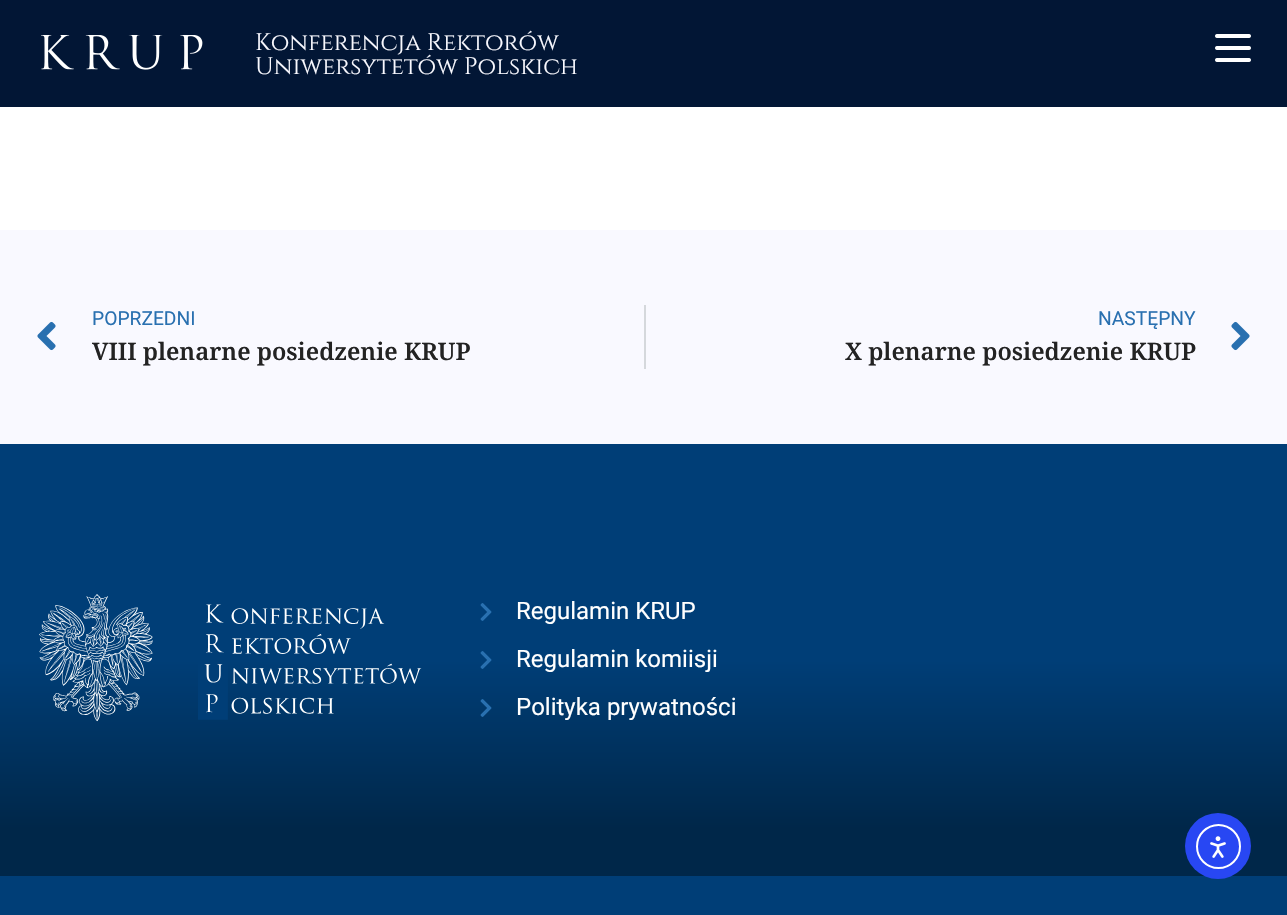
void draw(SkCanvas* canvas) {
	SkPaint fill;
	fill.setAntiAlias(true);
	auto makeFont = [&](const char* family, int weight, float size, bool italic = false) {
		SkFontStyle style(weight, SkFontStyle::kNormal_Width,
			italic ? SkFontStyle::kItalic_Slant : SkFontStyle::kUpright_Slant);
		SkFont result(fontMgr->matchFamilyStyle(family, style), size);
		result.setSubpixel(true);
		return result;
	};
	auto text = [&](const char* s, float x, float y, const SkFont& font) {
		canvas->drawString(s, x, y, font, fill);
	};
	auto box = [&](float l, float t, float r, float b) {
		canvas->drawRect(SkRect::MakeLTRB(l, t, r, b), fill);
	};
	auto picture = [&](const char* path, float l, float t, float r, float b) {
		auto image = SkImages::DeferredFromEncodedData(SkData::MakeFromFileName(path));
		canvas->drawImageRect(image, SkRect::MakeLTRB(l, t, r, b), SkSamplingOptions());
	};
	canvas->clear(0xFFFFFFFF);
	fill.setColor(0xFF021635);
	box(0, 0, 1287, 107);
	picture("image0.png", 41, 35, 203, 70);
	picture("image1.png", 1215, 34, 1251, 62);
	fill.setColor(0xFFF9F9FF);
	box(0, 230, 1287, 444);
	picture("image2.png", 37, 321, 56, 351);
	fill.setColor(0xFFD5D8DC);
	box(644, 305, 646, 369);
	picture("image3.png", 1231, 321, 1250, 351);
	{
		const SkColor colors[] = {0xFF003E77, 0xFF002749};
		const float stops[] = {0.5f, 0.89f};
		const SkPoint ends[] = {{644, 444}, {644, 876}};
		fill.setShader(SkGradientShader::MakeLinear(ends, colors, stops, 2, SkTileMode::kClamp));
		fill.setAlpha(255);
	}
	box(0, 444, 1287, 876);
	picture("image4.png", 39, 594, 153, 722);
	picture("image5.png", 198, 604, 422, 720);
	picture("image6.png", 480, 603, 492, 621);
	picture("image7.png", 480, 651, 492, 669);
	picture("image8.png", 480, 699, 492, 717);
	fill.setShader(nullptr);
	fill.setColor(0xFF003E77);
	box(0, 876, 1287, 915);
	fill.setColor(0xFF2847F3);
	canvas->drawCircle(1218, 846, 33, fill);
	fill.setStyle(SkPaint::kStroke_Style);
	fill.setStrokeWidth(2);
	fill.setColor(0xFFFFFFFF);
	canvas->drawCircle(1218.5f, 846.5f, 21.5f, fill);
	picture("image9.png", 1210, 836, 1226, 858);
	auto font1 = makeFont("Cinzel", 400, 24);
	fill.setStyle(SkPaint::kFill_Style);
	fill.setColor(0xFFF9F9FF);
	text("Konferencja Rektorów", 255, 50, font1);
	text("Uniwersytetów Polskich", 255, 74, font1);
	auto font2 = makeFont("Roboto", 400, 19.25f);
	fill.setColor(0xFF2970B0);
	text("POPRZEDNI", 92, 325, font2);
	auto font3 = makeFont("Noto Serif", 600, 24);
	fill.setColor(0xFF232323);
	text("VIII plenarne posiedzenie KRUP", 92, 360, font3);
	fill.setColor(0xFF2970B0);
	text("NASTĘPNY", 1098, 325, font2);
	fill.setColor(0xFF232323);
	text("X plenarne posiedzenie KRUP", 845, 360, font3);
	auto font4 = makeFont("Roboto", 400, 24);
	fill.setColor(0xFFFFFFFF);
	text("Regulamin KRUP", 516, 619, font4);
	text("Regulamin komiisji", 516, 667, font4);
	text("Polityka prywatności", 516, 715, font4);
}
